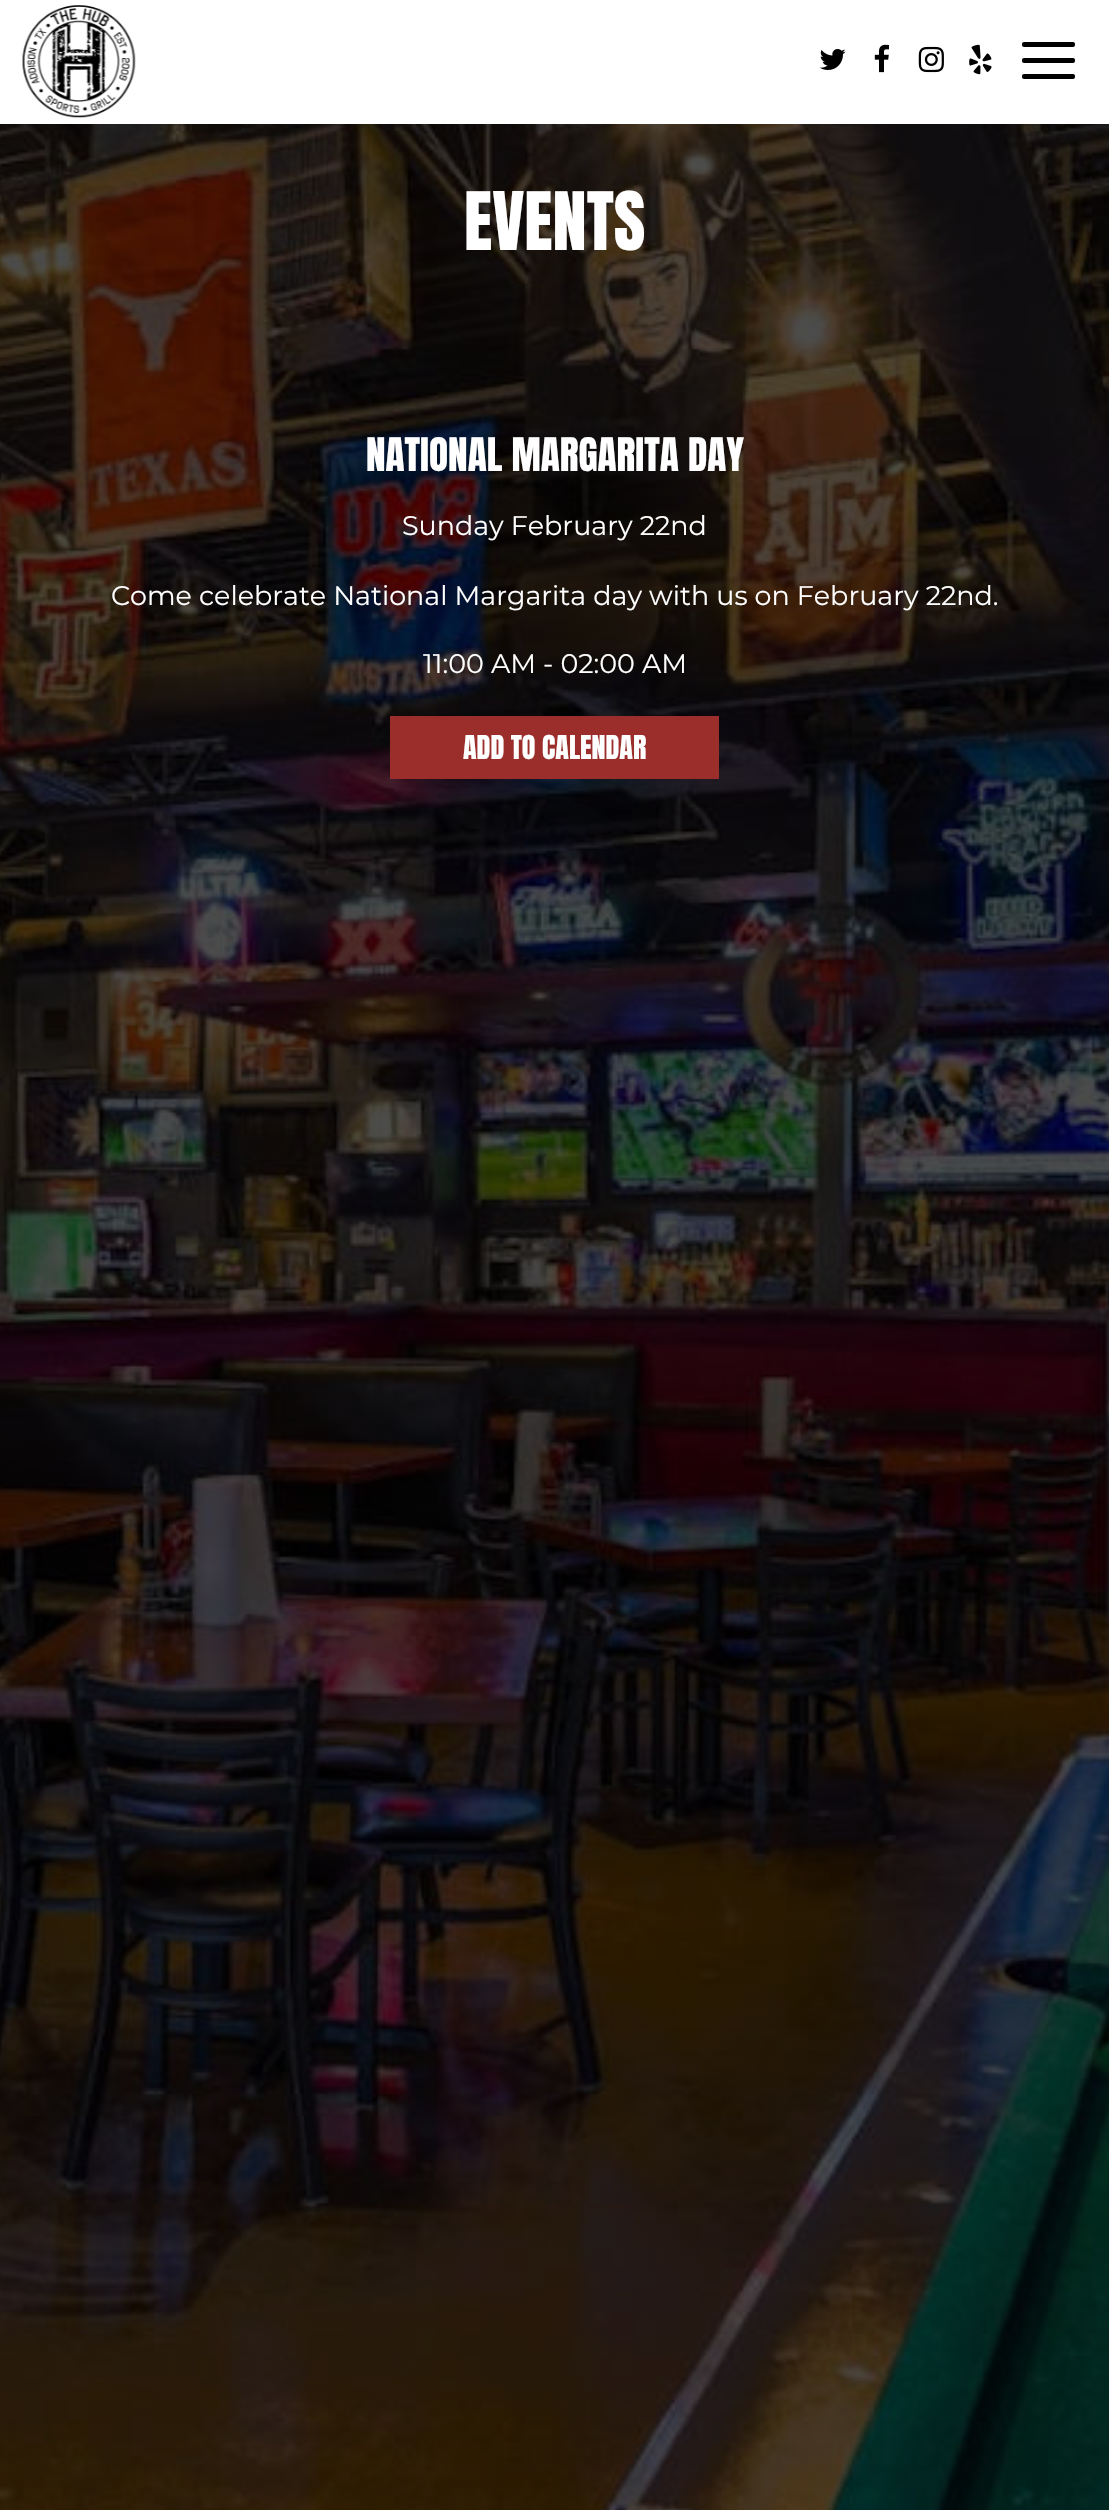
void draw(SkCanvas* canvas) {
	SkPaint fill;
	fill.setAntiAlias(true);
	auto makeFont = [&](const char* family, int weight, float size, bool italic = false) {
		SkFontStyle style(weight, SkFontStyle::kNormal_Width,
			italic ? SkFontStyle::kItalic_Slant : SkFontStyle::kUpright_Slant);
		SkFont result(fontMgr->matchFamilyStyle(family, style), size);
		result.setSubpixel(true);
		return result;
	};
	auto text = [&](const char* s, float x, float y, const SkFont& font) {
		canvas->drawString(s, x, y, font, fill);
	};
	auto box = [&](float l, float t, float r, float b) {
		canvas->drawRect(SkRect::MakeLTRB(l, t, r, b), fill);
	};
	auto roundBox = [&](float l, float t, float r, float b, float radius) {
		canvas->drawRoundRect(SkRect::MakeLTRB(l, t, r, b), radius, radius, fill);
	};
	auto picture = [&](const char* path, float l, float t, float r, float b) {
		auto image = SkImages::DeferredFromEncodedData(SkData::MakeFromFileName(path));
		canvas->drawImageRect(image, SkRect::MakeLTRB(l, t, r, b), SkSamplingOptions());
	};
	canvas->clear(0xFFFFFFFF);
	picture("image0.png", 0, 124, 1109, 2510);
	picture("image1.png", 22, 5, 136, 118);
	picture("image2.png", 819, 49, 846, 70);
	picture("image3.png", 874, 44, 889, 73);
	picture("image4.png", 918, 46, 944, 73);
	picture("image5.png", 969, 44, 992, 75);
	fill.setColor(0xFF000000);
	roundBox(1022, 42, 1075, 47, 2);
	roundBox(1022, 58, 1075, 63, 2);
	roundBox(1022, 74, 1075, 79, 2);
	fill.setColor(0xFF9B2E2B);
	box(390, 716, 719, 779);
	auto font1 = makeFont("Anton", 400, 68.5f);
	fill.setColor(0xFFFFFFFF);
	text("EVENTS", 464, 250, font1);
	auto font2 = makeFont("Anton", 400, 39.25f);
	text("NATIONAL MARGARITA DAY", 366, 471, font2);
	auto font3 = makeFont("Montserrat", 100, 26.95f);
	text("Sunday February 22nd", 402, 535, font3);
	text("Come celebrate National Margarita day with us on February 22nd.", 111, 605, font3);
	text("11:00 AM - 02:00 AM", 423, 673, font3);
	auto font4 = makeFont("Anton", 400, 28);
	text("ADD TO CALENDAR", 463, 759, font4);
}
